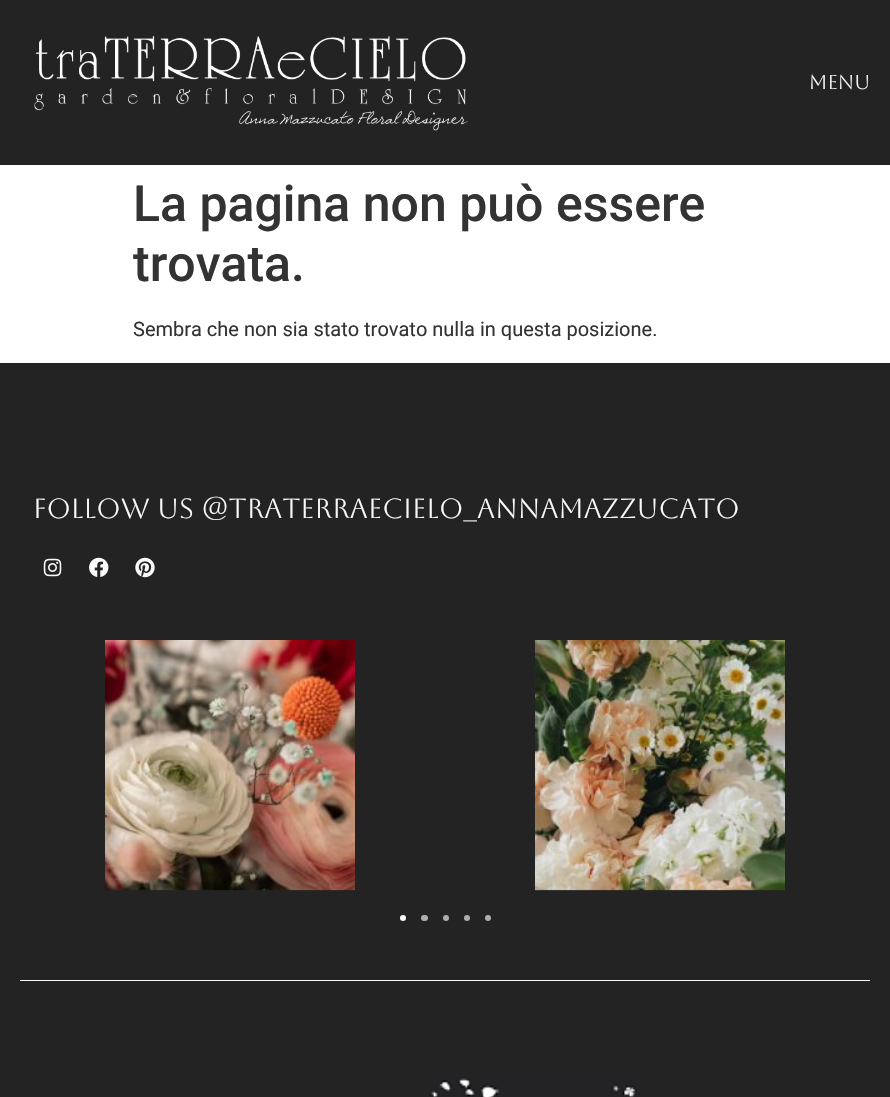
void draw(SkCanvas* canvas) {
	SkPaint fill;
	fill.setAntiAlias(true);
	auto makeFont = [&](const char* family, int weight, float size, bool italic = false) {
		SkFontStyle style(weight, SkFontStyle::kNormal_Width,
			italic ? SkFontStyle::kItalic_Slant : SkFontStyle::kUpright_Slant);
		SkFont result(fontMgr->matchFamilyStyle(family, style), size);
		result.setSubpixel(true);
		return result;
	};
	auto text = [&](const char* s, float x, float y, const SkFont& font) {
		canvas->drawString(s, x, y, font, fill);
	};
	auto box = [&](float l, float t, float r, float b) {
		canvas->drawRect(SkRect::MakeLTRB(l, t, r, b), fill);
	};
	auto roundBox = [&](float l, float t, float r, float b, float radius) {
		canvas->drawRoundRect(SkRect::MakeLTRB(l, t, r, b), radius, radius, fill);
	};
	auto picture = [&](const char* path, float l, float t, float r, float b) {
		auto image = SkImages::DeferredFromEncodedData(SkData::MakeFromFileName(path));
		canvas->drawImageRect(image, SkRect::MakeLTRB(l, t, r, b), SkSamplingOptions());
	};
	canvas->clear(0xFFFFFFFF);
	fill.setColor(0xFF232323);
	box(0, 0, 890, 165);
	picture("image0.png", 34, 36, 468, 131);
	box(0, 363, 890, 1097);
	picture("image1.png", 43, 558, 62, 577);
	picture("image2.png", 89, 557, 109, 577);
	picture("image3.png", 135, 557, 155, 578);
	picture("image4.png", 105, 640, 355, 891);
	picture("image5.png", 535, 640, 785, 891);
	fill.setColor(0xFFFBFAFA);
	canvas->drawCircle(403, 918, 3, fill);
	fill.setColor(0xFFADADAD);
	roundBox(421, 915, 428, 921, 3);
	canvas->drawCircle(446, 918, 3, fill);
	canvas->drawCircle(467, 918, 3, fill);
	canvas->drawCircle(488, 918, 3, fill);
	fill.setColor(0xFFFBFAFA);
	box(20, 980, 870, 981);
	picture("image6.png", 430, 1077, 637, 1097);
	auto font1 = makeFont("Aboreto", 400, 20);
	text("menu", 809, 89, font1);
	auto font2 = makeFont("Roboto", 500, 50);
	fill.setColor(0xFF333333);
	text("La pagina non può essere", 133, 221, font2);
	text("trovata.", 133, 281, font2);
	auto font3 = makeFont("Roboto", 400, 20);
	text("Sembra che non sia stato trovato nulla in questa posizione.", 133, 336, font3);
	auto font4 = makeFont("Aboreto", 400, 27.5f);
	fill.setColor(0xFFFBFAFA);
	text("follow us @traterraecielo_annamazzucato", 33, 518, font4);
}
